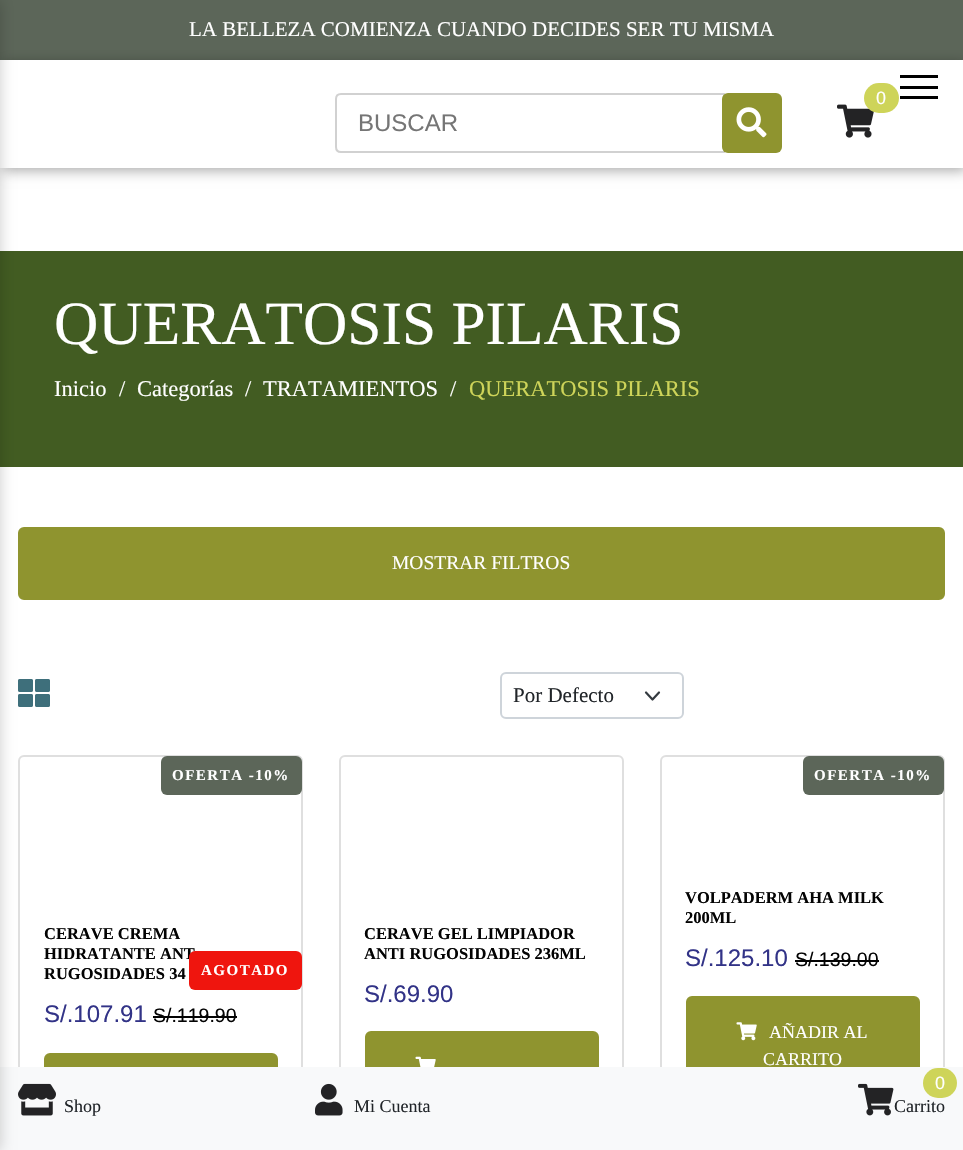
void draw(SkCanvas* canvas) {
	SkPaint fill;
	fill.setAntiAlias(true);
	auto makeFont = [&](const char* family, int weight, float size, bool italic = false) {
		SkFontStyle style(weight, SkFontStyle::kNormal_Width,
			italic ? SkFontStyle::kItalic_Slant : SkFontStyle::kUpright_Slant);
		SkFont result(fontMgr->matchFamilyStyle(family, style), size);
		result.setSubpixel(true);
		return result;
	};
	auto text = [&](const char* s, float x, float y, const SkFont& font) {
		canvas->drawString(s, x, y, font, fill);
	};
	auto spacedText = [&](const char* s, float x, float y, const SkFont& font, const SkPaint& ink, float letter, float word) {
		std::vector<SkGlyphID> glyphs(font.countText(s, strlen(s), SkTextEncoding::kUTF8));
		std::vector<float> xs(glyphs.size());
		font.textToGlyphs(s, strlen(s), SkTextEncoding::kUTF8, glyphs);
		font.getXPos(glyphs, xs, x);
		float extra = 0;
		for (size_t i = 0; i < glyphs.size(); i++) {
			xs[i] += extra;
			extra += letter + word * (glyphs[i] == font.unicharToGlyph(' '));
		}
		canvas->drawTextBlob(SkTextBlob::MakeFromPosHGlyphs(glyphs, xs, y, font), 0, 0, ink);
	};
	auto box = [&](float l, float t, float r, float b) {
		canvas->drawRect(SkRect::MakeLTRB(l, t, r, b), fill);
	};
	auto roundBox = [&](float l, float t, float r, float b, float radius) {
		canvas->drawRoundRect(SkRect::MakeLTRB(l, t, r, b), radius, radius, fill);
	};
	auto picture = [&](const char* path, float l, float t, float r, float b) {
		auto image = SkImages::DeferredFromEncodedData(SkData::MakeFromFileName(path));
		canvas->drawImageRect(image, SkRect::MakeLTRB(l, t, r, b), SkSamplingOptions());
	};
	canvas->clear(0xFFFFFFFF);
	fill.setColor(0xFF5C6659);
	box(0, 0, 963, 60);
	canvas->save();
	canvas->clipPath(SkPathBuilder(SkPathFillType::kEvenOdd).moveTo(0, 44).lineTo(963, 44).lineTo(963, 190).lineTo(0, 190).close().moveTo(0, 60).lineTo(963, 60).lineTo(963, 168).lineTo(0, 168).close().detach(), true);
	fill.setColor(0x52000000);
	fill.setMaskFilter(SkMaskFilter::MakeBlur(kNormal_SkBlurStyle, 6));
	canvas->drawRect(SkRect::MakeLTRB(3, 63, 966, 171), fill);
	fill.setMaskFilter(nullptr);
	canvas->restore();
	fill.setColor(0xFF425C22);
	box(0, 251, 963, 467);
	fill.setColor(0xFF8F942F);
	canvas->drawRoundRect(SkRect::MakeLTRB(19, 528, 944, 599), 5, 5, fill);
	fill.setStyle(SkPaint::kStroke_Style);
	fill.setStrokeWidth(2);
	canvas->drawRoundRect(SkRect::MakeLTRB(19, 528, 944, 599), 5, 5, fill);
	picture("image2.png", 18, 679, 50, 707);
	fill.setColor(0xFFDFDFDF);
	canvas->drawRoundRect(SkRect::MakeLTRB(19, 756, 302, 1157), 5, 5, fill);
	fill.setStyle(SkPaint::kFill_Style);
	fill.setColor(0xFF8F942F);
	canvas->drawRoundRect(SkRect::MakeLTRB(45, 1054, 277, 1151), 5, 5, fill);
	fill.setStyle(SkPaint::kStroke_Style);
	canvas->drawRoundRect(SkRect::MakeLTRB(45, 1054, 277, 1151), 5, 5, fill);
	fill.setColor(0xFFDFDFDF);
	canvas->drawRoundRect(SkRect::MakeLTRB(340, 756, 623, 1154), 5, 5, fill);
	fill.setStyle(SkPaint::kFill_Style);
	fill.setColor(0xFF8F942F);
	canvas->drawRoundRect(SkRect::MakeLTRB(366, 1032, 598, 1129), 5, 5, fill);
	fill.setStyle(SkPaint::kStroke_Style);
	canvas->drawRoundRect(SkRect::MakeLTRB(366, 1032, 598, 1129), 5, 5, fill);
	fill.setColor(0xFFDFDFDF);
	canvas->drawRoundRect(SkRect::MakeLTRB(661, 756, 944, 1120), 5, 5, fill);
	fill.setStyle(SkPaint::kFill_Style);
	fill.setColor(0xFF8F942F);
	canvas->drawRoundRect(SkRect::MakeLTRB(687, 997, 919, 1094), 5, 5, fill);
	fill.setStyle(SkPaint::kStroke_Style);
	canvas->drawRoundRect(SkRect::MakeLTRB(687, 997, 919, 1094), 5, 5, fill);
	fill.setStyle(SkPaint::kFill_Style);
	fill.setColor(0xFFF8F9FA);
	box(0, 1067, 963, 1150);
	picture("image5.png", 18, 1083, 56, 1116);
	fill.setColor(0x33000000);
	fill.setMaskFilter(SkMaskFilter::MakeBlur(kNormal_SkBlurStyle, 7.5f));
	canvas->drawRect(SkRect::MakeLTRB(-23, 0, 0, 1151), fill);
	fill.setMaskFilter(nullptr);
	fill.setColor(0xFF000000);
	box(900, 75, 938, 78);
	box(900, 86, 938, 89);
	box(900, 96, 938, 99);
	picture("image0.png", 837, 104, 874, 138);
	fill.setColor(0xFFCED459);
	roundBox(864, 83, 899, 113, 15);
	fill.setStyle(SkPaint::kStroke_Style);
	fill.setColor(0xFFD1D1D1);
	canvas->drawPath(SkPathBuilder().moveTo(341, 94).lineTo(724, 94).lineTo(724, 152).lineTo(341, 152).cubicTo(338, 152, 336, 150, 336, 147).lineTo(336, 99).cubicTo(336, 96, 338, 94, 341, 94).close().detach(), fill);
	fill.setStyle(SkPaint::kFill_Style);
	fill.setColor(0xFF8F942F);
	roundBox(722, 93, 782, 153, 6);
	picture("image1.png", 736, 107, 767, 138);
	fill.setStyle(SkPaint::kStroke_Style);
	fill.setStrokeWidth(2.2f);
	fill.setStrokeCap(SkPaint::kRound_Cap);
	fill.setStrokeJoin(SkPaint::kRound_Join);
	fill.setColor(0xFF343A40);
	canvas->drawPath(SkPathBuilder().moveTo(646, 692.5f).lineTo(652.5f, 699.5f).lineTo(659, 692.5f).detach(), fill);
	fill.setStrokeWidth(2);
	fill.setStrokeCap(SkPaint::kButt_Cap);
	fill.setStrokeJoin(SkPaint::kMiter_Join);
	fill.setColor(0xFFCED4DA);
	canvas->drawRoundRect(SkRect::MakeLTRB(501, 673, 683, 718), 5, 5, fill);
	fill.setStyle(SkPaint::kFill_Style);
	fill.setColor(0xFF5C6659);
	roundBox(161, 756, 302, 795, 6);
	fill.setColor(0xFF030303);
	box(153, 1016, 237, 1018);
	picture("image3.png", 415, 1056, 436, 1067);
	fill.setColor(0xFF5C6659);
	roundBox(803, 756, 944, 795, 6);
	fill.setColor(0xFF030303);
	box(795, 960, 879, 962);
	picture("image4.png", 736, 1022, 757, 1041);
	picture("image6.png", 315, 1083, 343, 1116);
	picture("image7.png", 858, 1083, 894, 1116);
	fill.setColor(0xFFCED459);
	roundBox(923, 1068, 957, 1098, 15);
	auto font1 = makeFont("Liberation Serif", 400, 21);
	fill.setColor(0xFFFFFFFF);
	text("LA BELLEZA COMIENZA CUANDO DECIDES SER TU MISMA", 189, 36, font1);
	auto font2 = makeFont("Liberation Sans", 400, 18);
	text("0", 876, 104, font2);
	auto font3 = makeFont("Liberation Sans", 400, 24);
	fill.setColor(0xFF757575);
	text("BUSCAR", 358, 131, font3);
	auto font4 = makeFont("Liberation Serif", 400, 61.4f);
	fill.setColor(0xFFFFFFFF);
	text("QUERATOSIS PILARIS", 54, 344, font4);
	auto font5 = makeFont("Liberation Serif", 400, 22.5f);
	text("Inicio", 54, 396, font5);
	text("/", 119, 396, font5);
	text("Categorías", 137, 396, font5);
	text("/", 245, 396, font5);
	text("TRATAMIENTOS", 263, 396, font5);
	text("/", 450, 396, font5);
	fill.setColor(0xFFCED459);
	text("QUERATOSIS PILARIS", 469, 396, font5);
	auto font6 = makeFont("Liberation Serif", 400, 19.5f);
	fill.setColor(0xFFFFFFFF);
	text("MOSTRAR FILTROS", 392, 569, font6);
	fill.setColor(0xFF212529);
	text("Por Defecto", 513, 702, font1);
	auto font7 = makeFont("Liberation Serif", 700, 15);
	fill.setColor(0xFFFFFFFF);
	spacedText("OFERTA -10%", 172, 780, font7, fill, 1.5f, 0);
	auto font8 = makeFont("Liberation Serif", 700, 16.5f);
	fill.setColor(0xFF030303);
	text("CERAVE CREMA", 44, 939, font8);
	text("HIDRATANTE ANT", 44, 959, font8);
	text("RUGOSIDADES 34", 44, 979, font8);
	fill.setColor(0xFF323387);
	text("S/.107.91", 44, 1022, font3);
	auto font9 = makeFont("Liberation Sans", 400, 19.5f);
	fill.setColor(0xFF030303);
	text("S/.119.90", 153, 1022, font9);
	fill.setColor(0xFFEF150E);
	roundBox(189, 951, 302, 990, 6);
	fill.setColor(0xFFFFFFFF);
	spacedText("AGOTADO", 201, 975, font7, fill, 1.5f, 0);
	fill.setColor(0xFF030303);
	text("CERAVE GEL LIMPIADOR", 364, 939, font8);
	text("ANTI RUGOSIDADES 236ML", 364, 959, font8);
	fill.setColor(0xFF323387);
	text("S/.69.90", 364, 1002, font3);
	fill.setColor(0xFFFFFFFF);
	spacedText("OFERTA -10%", 814, 780, font7, fill, 1.5f, 0);
	fill.setColor(0xFF030303);
	text("VOLPADERM AHA MILK", 685, 903, font8);
	text("200ML", 685, 923, font8);
	fill.setColor(0xFF323387);
	text("S/.125.10", 685, 966, font3);
	fill.setColor(0xFF030303);
	text("S/.139.00", 795, 966, font9);
	auto font10 = makeFont("Liberation Serif", 400, 18);
	fill.setColor(0xFFFFFFFF);
	text("AÑADIR AL", 769, 1038, font10);
	text("CARRITO", 763, 1065, font10);
	fill.setColor(0xFF212529);
	text("Shop", 64, 1112, font10);
	text("Mi Cuenta", 354, 1112, font10);
	fill.setColor(0xFFFFFFFF);
	text("0", 935, 1089, font2);
	fill.setColor(0xFF212529);
	text("Carrito", 894, 1112, font10);
}
